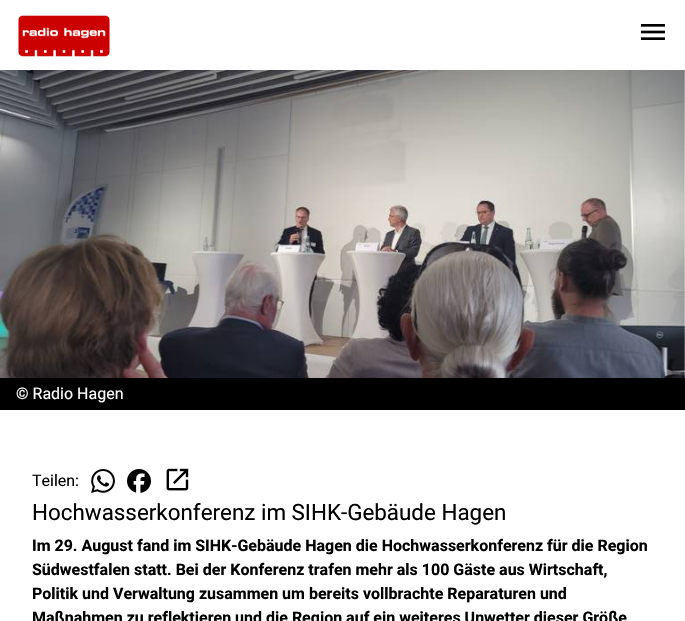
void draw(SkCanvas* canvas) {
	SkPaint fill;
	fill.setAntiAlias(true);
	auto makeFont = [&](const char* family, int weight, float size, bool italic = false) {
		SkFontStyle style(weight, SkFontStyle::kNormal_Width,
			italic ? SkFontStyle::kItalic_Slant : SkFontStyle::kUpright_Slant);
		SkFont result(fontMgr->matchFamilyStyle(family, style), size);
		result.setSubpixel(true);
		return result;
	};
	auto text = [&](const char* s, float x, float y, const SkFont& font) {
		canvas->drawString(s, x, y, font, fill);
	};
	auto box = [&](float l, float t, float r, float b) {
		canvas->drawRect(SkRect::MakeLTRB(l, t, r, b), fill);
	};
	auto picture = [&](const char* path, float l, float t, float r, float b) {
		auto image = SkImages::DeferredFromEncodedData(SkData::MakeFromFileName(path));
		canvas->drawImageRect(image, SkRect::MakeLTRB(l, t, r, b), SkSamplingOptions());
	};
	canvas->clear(0xFFFFFFFF);
	picture("image0.png", 18, 15, 110, 57);
	picture("image1.png", 641, 24, 665, 40);
	picture("image2.png", 0, 70, 685, 378);
	fill.setColor(0xFF000000);
	box(0, 378, 685, 410);
	picture("image3.png", 91, 469, 115, 493);
	picture("image4.png", 127, 469, 151, 493);
	picture("image5.png", 166, 468, 189, 491);
	auto font1 = makeFont("Roboto", 400, 16);
	fill.setColor(0xFFFFFFFF);
	text("© Radio Hagen", 16, 399, font1);
	fill.setColor(0xFF000000);
	text("Teilen:", 32, 486, font1);
	auto font2 = makeFont("Roboto", 400, 22.4f);
	text("Hochwasserkonferenz im SIHK-Gebäude Hagen", 32, 520, font2);
	auto font3 = makeFont("Roboto", 700, 16);
	text("Im 29. August fand im SIHK-Gebäude Hagen die Hochwasserkonferenz für die Region", 32, 551, font3);
	text("Südwestfalen statt. Bei der Konferenz trafen mehr als 100 Gäste aus Wirtschaft,", 32, 575, font3);
	text("Politik und Verwaltung zusammen um bereits vollbrachte Reparaturen und", 32, 599, font3);
	text("Maßnahmen zu reflektieren und die Region auf ein weiteres Unwetter dieser Größe", 32, 623, font3);
}
